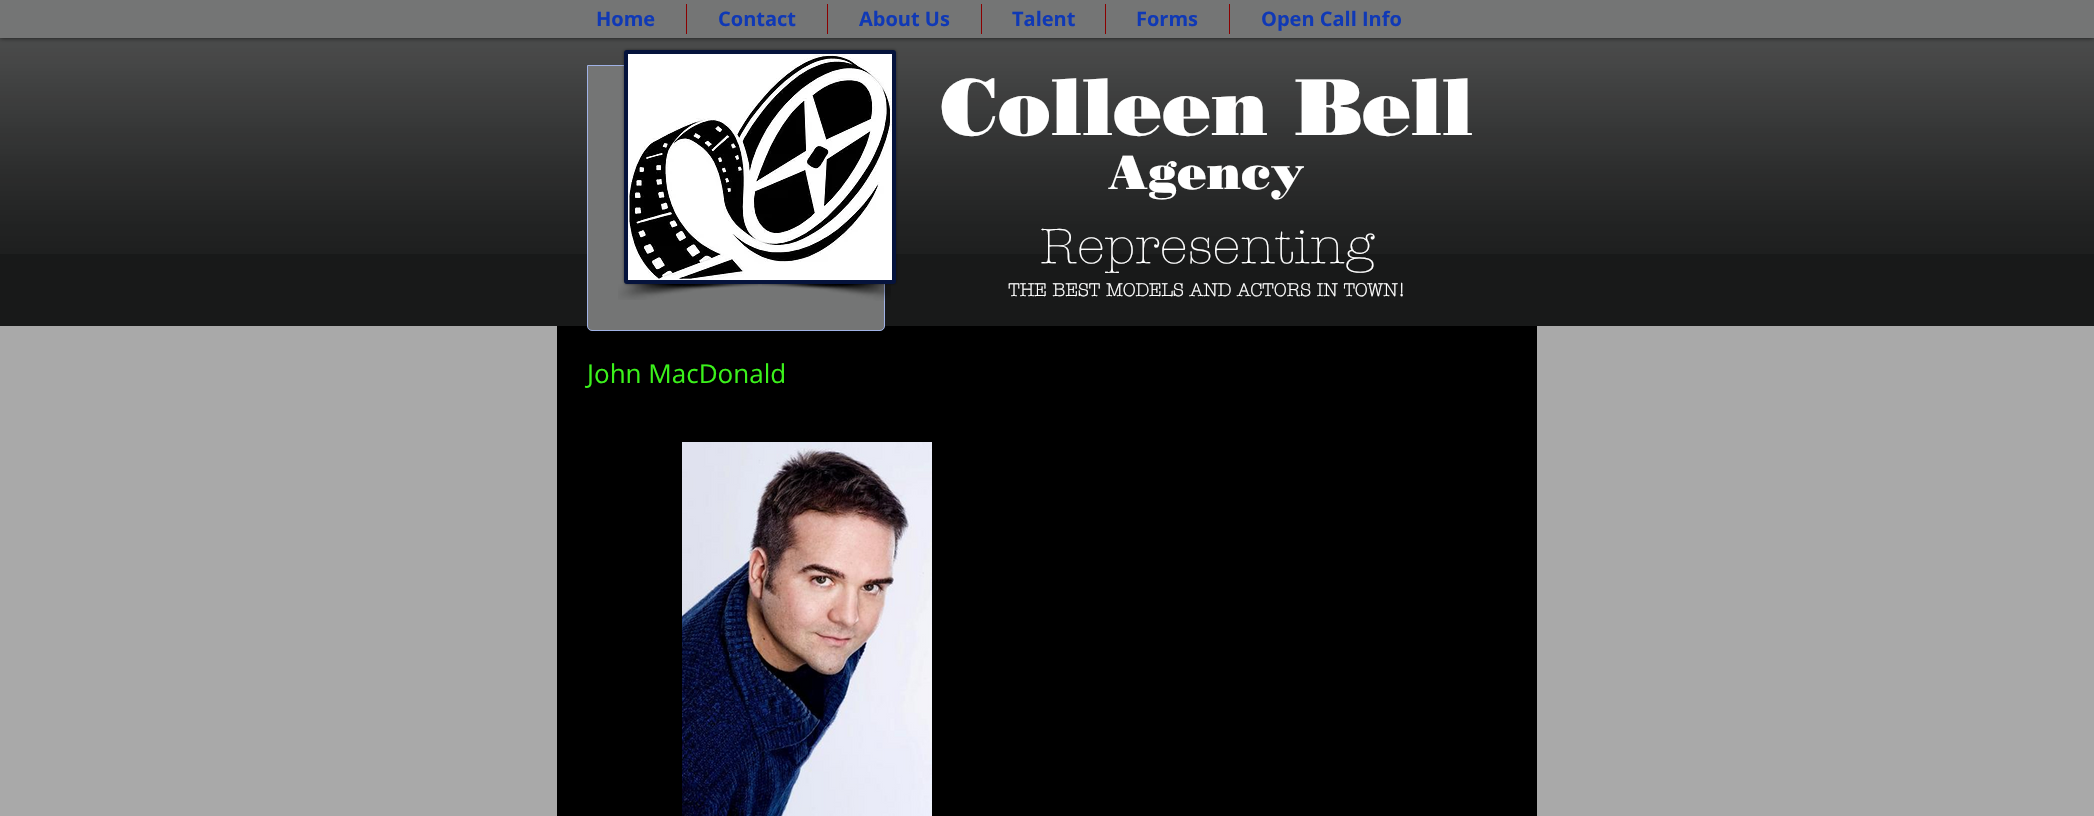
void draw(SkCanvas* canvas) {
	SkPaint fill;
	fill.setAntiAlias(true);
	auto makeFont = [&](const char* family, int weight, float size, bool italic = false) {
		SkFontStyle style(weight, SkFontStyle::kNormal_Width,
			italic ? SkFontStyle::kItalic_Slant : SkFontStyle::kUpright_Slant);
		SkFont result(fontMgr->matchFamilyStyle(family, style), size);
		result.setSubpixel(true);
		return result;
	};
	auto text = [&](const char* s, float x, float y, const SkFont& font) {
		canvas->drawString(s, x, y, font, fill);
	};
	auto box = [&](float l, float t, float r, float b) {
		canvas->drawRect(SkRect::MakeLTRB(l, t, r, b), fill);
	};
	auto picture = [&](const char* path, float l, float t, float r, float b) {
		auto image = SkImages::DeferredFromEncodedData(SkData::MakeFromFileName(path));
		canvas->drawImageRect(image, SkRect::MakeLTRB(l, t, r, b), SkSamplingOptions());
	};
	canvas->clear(0xFFA9A9A9);
	fill.setColor(0xFF181919);
	box(0, 38, 2094, 326);
	picture("image3.png", 0, 38, 2094, 254);
	fill.setColor(0xB3000000);
	fill.setMaskFilter(SkMaskFilter::MakeBlur(kNormal_SkBlurStyle, 2.5f));
	canvas->drawRect(SkRect::MakeLTRB(0, -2, 2094, 38), fill);
	fill.setMaskFilter(nullptr);
	fill.setColor(0xFF747575);
	box(0, 0, 2094, 38);
	fill.setColor(0xFF8B0000);
	box(686, 4, 687, 34);
	box(827, 4, 828, 34);
	box(981, 4, 982, 34);
	box(1105, 4, 1106, 34);
	box(1229, 4, 1230, 34);
	fill.setColor(0xFF000000);
	box(557, 326, 1537, 816);
	fill.setColor(0xFF747575);
	canvas->drawPath(SkPathBuilder().moveTo(587.5f, 65.5f).lineTo(884.5f, 65.5f).lineTo(884.5f, 326).cubicTo(884.5f, 328.5f, 882.5f, 330.5f, 880, 330.5f).lineTo(592, 330.5f).cubicTo(589.5f, 330.5f, 587.5f, 328.5f, 587.5f, 326).close().detach(), fill);
	fill.setStyle(SkPaint::kStroke_Style);
	fill.setStrokeWidth(1);
	fill.setColor(0xFFA0B2E6);
	canvas->drawPath(SkPathBuilder().moveTo(587.5f, 65.5f).lineTo(884.5f, 65.5f).lineTo(884.5f, 326).cubicTo(884.5f, 328.5f, 882.5f, 330.5f, 880, 330.5f).lineTo(592, 330.5f).cubicTo(589.5f, 330.5f, 587.5f, 328.5f, 587.5f, 326).close().detach(), fill);
	fill.setStyle(SkPaint::kFill_Style);
	fill.setColor(0x80000000);
	fill.setMaskFilter(SkMaskFilter::MakeBlur(kNormal_SkBlurStyle, 1.5f));
	canvas->drawRoundRect(SkRect::MakeLTRB(624, 50, 896, 284), 3, 3, fill);
	fill.setMaskFilter(nullptr);
	fill.setStyle(SkPaint::kStroke_Style);
	fill.setStrokeWidth(4);
	fill.setColor(0xFF05133C);
	canvas->drawRoundRect(SkRect::MakeLTRB(626, 52, 894, 282), 1, 1, fill);
	picture("image0.png", 628, 54, 892, 280);
	picture("image1.png", 618, 284, 758, 300);
	picture("image2.png", 762, 284, 891, 301);
	picture("image4.png", 682, 442, 932, 816);
	auto font1 = makeFont("Open Sans", 700, 20);
	fill.setStyle(SkPaint::kFill_Style);
	fill.setColor(0xFF1039B5);
	text("Home", 596, 26, font1);
	text("Contact", 718, 26, font1);
	text("About Us", 859, 26, font1);
	text("Talent", 1012, 26, font1);
	text("Forms", 1136, 26, font1);
	text("Open Call Info", 1261, 26, font1);
	auto font2 = makeFont("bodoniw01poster", 900, 80);
	fill.setColor(0xFFFFFFFF);
	text("Colleen Bell", 940, 135, font2);
	auto font3 = makeFont("bodoniw01poster", 900, 48);
	text("Agency", 1108, 189, font3);
	auto font4 = makeFont("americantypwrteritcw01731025", 300, 50);
	text("Representing", 1039, 263, font4);
	auto font5 = makeFont("americantypwrteritcw01731025", 700, 18);
	text("THE BEST MODELS AND ACTORS IN TOWN!", 1008, 296, font5);
	auto font6 = makeFont("Open Sans", 400, 26);
	fill.setColor(0xFF3BF21B);
	text("John MacDonald", 587, 383, font6);
}
